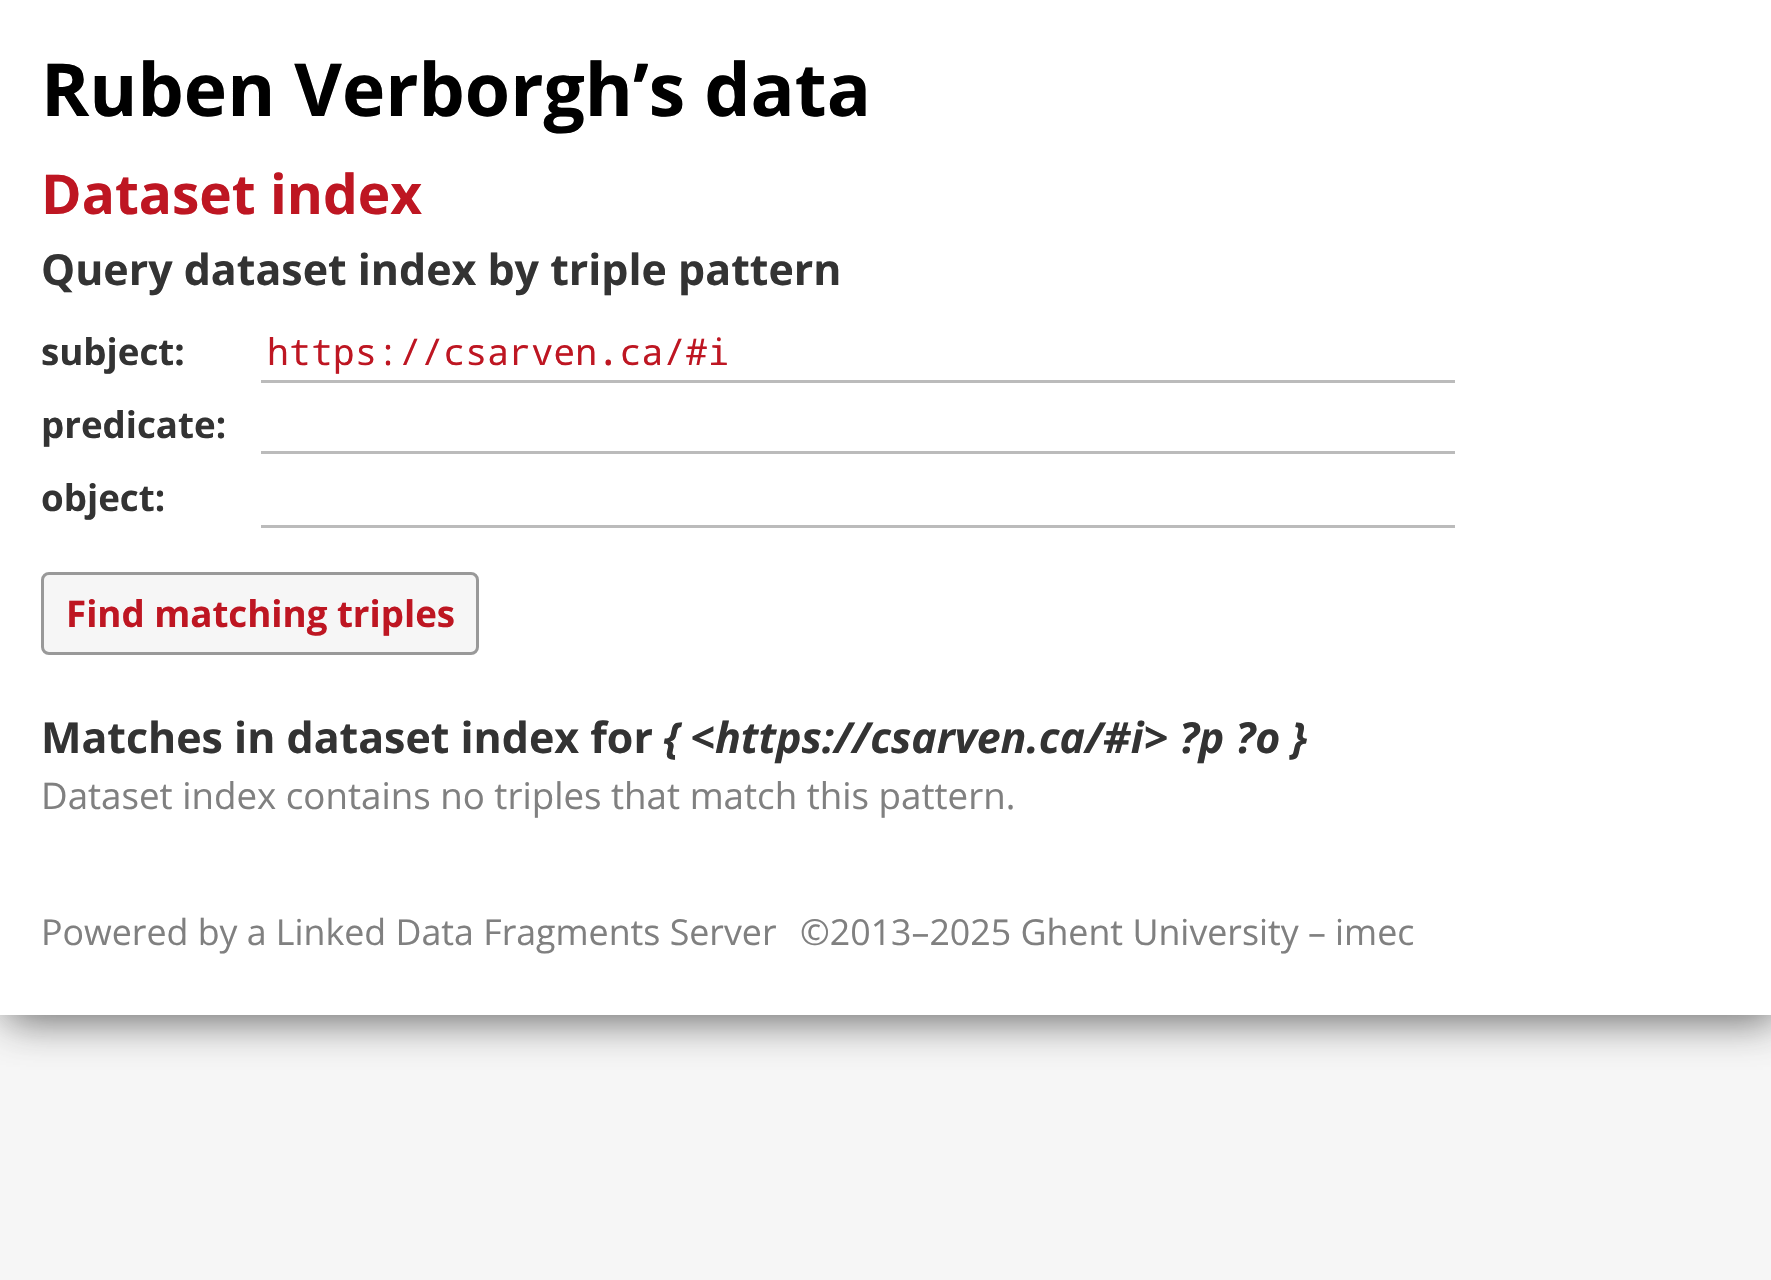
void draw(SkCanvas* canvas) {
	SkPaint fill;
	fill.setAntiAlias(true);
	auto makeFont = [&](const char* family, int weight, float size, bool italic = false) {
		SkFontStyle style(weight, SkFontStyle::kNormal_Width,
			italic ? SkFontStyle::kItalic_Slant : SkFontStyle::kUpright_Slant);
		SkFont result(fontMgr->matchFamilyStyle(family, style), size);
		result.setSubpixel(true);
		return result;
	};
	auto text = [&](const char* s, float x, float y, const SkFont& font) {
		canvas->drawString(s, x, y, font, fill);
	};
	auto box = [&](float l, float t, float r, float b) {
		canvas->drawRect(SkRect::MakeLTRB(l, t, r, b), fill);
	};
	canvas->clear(0xFFF6F6F6);
	fill.setColor(0xBF323232);
	fill.setMaskFilter(SkMaskFilter::MakeBlur(kNormal_SkBlurStyle, 20.5f));
	canvas->drawRect(SkRect::MakeLTRB(6, 6, 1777, 1020), fill);
	fill.setMaskFilter(nullptr);
	fill.setColor(0xFFFFFFFF);
	box(0, 0, 1771, 1015);
	fill.setColor(0xFFBBBBBB);
	box(261, 380, 1455, 383);
	box(261, 451, 1455, 454);
	box(261, 525, 1455, 528);
	fill.setColor(0xFFF6F6F6);
	canvas->drawRoundRect(SkRect::MakeLTRB(42.5f, 573.5f, 477.5f, 653.5f), 6.5f, 6.5f, fill);
	fill.setStyle(SkPaint::kStroke_Style);
	fill.setStrokeWidth(3);
	fill.setColor(0xFF999999);
	canvas->drawRoundRect(SkRect::MakeLTRB(42.5f, 573.5f, 477.5f, 653.5f), 6.5f, 6.5f, fill);
	auto font1 = makeFont("Open Sans", 700, 73.25f);
	fill.setStyle(SkPaint::kFill_Style);
	fill.setColor(0xFF000000);
	text("Ruben Verborgh’s data", 41, 116, font1);
	auto font2 = makeFont("Open Sans", 700, 55);
	fill.setColor(0xFFBE1622);
	text("Dataset index", 41, 214, font2);
	auto font3 = makeFont("Open Sans", 700, 42.9f);
	fill.setColor(0xFF333333);
	text("Query dataset index by triple pattern", 41, 285, font3);
	auto font4 = makeFont("Open Sans", 700, 36.7f);
	text("subject:", 41, 365, font4);
	auto font5 = makeFont("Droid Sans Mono", 400, 36.7f);
	fill.setColor(0xFFBE1622);
	text("https://csarven.ca/#i", 267, 365, font5);
	fill.setColor(0xFF333333);
	text("predicate:", 41, 438, font4);
	text("object:", 41, 511, font4);
	fill.setColor(0xFFBE1622);
	text("Find matching triples", 66, 627, font4);
	fill.setColor(0xFF333333);
	text("Matches in dataset index for", 41, 753, font3);
	auto font6 = makeFont("Open Sans", 700, 42.9f, true);
	text("{ <https://csarven.ca/#i> ?p ?o }", 664, 753, font6);
	auto font7 = makeFont("Open Sans", 400, 36.7f);
	fill.setColor(0xFF808080);
	text("Dataset index contains no triples that match this pattern.", 41, 809, font7);
	auto font8 = makeFont("Open Sans", 400, 35.75f);
	text("Powered by a Linked Data Fragments Server", 41, 945, font8);
	text("©2013–2025 Ghent University – imec", 800, 945, font8);
}
